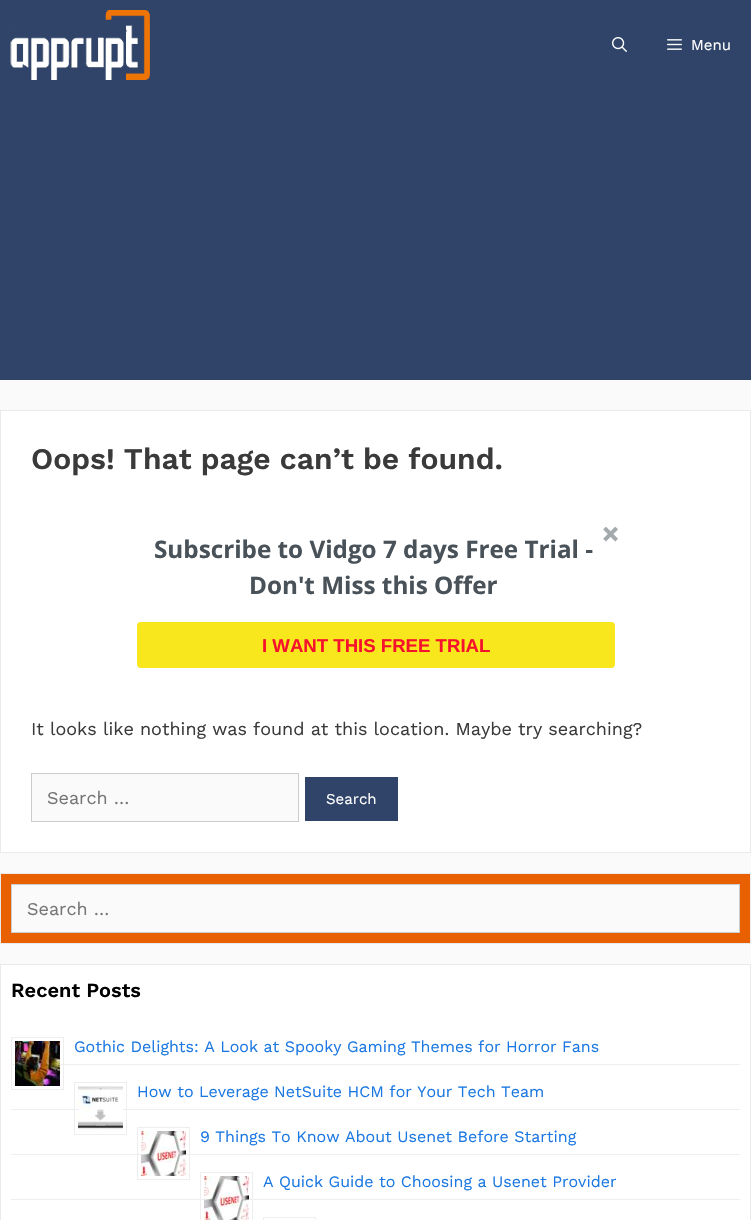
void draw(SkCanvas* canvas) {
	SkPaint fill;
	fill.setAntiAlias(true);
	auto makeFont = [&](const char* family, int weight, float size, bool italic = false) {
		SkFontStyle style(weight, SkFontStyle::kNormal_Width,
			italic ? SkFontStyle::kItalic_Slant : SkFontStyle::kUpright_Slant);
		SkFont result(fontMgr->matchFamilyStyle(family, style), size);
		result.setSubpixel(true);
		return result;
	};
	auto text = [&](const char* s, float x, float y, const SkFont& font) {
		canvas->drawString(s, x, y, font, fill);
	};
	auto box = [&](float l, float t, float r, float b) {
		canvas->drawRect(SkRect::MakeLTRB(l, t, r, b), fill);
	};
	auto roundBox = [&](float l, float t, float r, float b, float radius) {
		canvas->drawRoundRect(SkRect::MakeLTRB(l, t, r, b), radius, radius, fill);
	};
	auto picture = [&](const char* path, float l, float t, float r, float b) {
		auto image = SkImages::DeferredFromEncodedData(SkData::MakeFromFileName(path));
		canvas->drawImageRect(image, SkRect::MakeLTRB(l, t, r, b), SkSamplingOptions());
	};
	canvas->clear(0xFFFAFAFA);
	fill.setColor(0xFF2F4468);
	box(0, 0, 751, 380);
	picture("image0.png", 10, 10, 150, 80);
	picture("image1.png", 612, 37, 627, 52);
	picture("image2.png", 667, 39, 682, 50);
	fill.setColor(0xFFFFFFFF);
	canvas->drawRect(SkRect::MakeLTRB(0.5f, 410.5f, 750.5f, 852.5f), fill);
	fill.setStyle(SkPaint::kStroke_Style);
	fill.setStrokeWidth(1);
	fill.setColor(0xFFE8EAED);
	canvas->drawRect(SkRect::MakeLTRB(0.5f, 410.5f, 750.5f, 852.5f), fill);
	picture("image3.png", 603, 527, 618, 542);
	fill.setStyle(SkPaint::kFill_Style);
	fill.setColor(0xFFF8E71C);
	roundBox(137, 622, 615, 668, 4);
	fill.setColor(0xFFFAFAFA);
	canvas->drawRect(SkRect::MakeLTRB(31.5f, 773.5f, 298.5f, 821.5f), fill);
	fill.setStyle(SkPaint::kStroke_Style);
	fill.setColor(0xFFCCCCCC);
	canvas->drawRect(SkRect::MakeLTRB(31.5f, 773.5f, 298.5f, 821.5f), fill);
	fill.setStyle(SkPaint::kFill_Style);
	fill.setColor(0xFF2F4468);
	box(305, 777, 398, 821);
	fill.setColor(0xFFE86000);
	canvas->drawRect(SkRect::MakeLTRB(0.5f, 873.5f, 750.5f, 943.5f), fill);
	fill.setStyle(SkPaint::kStroke_Style);
	fill.setColor(0xFFE8EAED);
	canvas->drawRect(SkRect::MakeLTRB(0.5f, 873.5f, 750.5f, 943.5f), fill);
	fill.setStyle(SkPaint::kFill_Style);
	fill.setColor(0xFFFAFAFA);
	canvas->drawRect(SkRect::MakeLTRB(11.5f, 884.5f, 739.5f, 932.5f), fill);
	fill.setStyle(SkPaint::kStroke_Style);
	fill.setColor(0xFFCCCCCC);
	canvas->drawRect(SkRect::MakeLTRB(11.5f, 884.5f, 739.5f, 932.5f), fill);
	fill.setStyle(SkPaint::kFill_Style);
	fill.setColor(0xFFFFFFFF);
	canvas->drawRect(SkRect::MakeLTRB(0.5f, 964.5f, 750.5f, 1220.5f), fill);
	fill.setStyle(SkPaint::kStroke_Style);
	fill.setColor(0xFFE8EAED);
	canvas->drawRect(SkRect::MakeLTRB(0.5f, 964.5f, 750.5f, 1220.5f), fill);
	fill.setStyle(SkPaint::kFill_Style);
	fill.setColor(0xFFEEEEEE);
	box(11, 1064, 740, 1065);
	fill.setStyle(SkPaint::kStroke_Style);
	canvas->drawRect(SkRect::MakeLTRB(11.5f, 1037.5f, 63.5f, 1089.5f), fill);
	picture("image4.png", 15, 1041, 60, 1086);
	fill.setStyle(SkPaint::kFill_Style);
	box(11, 1109, 740, 1110);
	fill.setStyle(SkPaint::kStroke_Style);
	canvas->drawRect(SkRect::MakeLTRB(74.5f, 1082.5f, 126.5f, 1134.5f), fill);
	picture("image5.png", 78, 1086, 123, 1130);
	fill.setStyle(SkPaint::kFill_Style);
	box(11, 1154, 740, 1155);
	fill.setStyle(SkPaint::kStroke_Style);
	canvas->drawRect(SkRect::MakeLTRB(137.5f, 1127.5f, 189.5f, 1179.5f), fill);
	picture("image6.png", 141, 1131, 186, 1176);
	fill.setStyle(SkPaint::kFill_Style);
	box(11, 1199, 740, 1200);
	fill.setStyle(SkPaint::kStroke_Style);
	canvas->drawRect(SkRect::MakeLTRB(200.5f, 1172.5f, 252.5f, 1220.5f), fill);
	picture("image7.png", 204, 1176, 249, 1220);
	canvas->drawRect(SkRect::MakeLTRB(263.5f, 1217.5f, 315.5f, 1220.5f), fill);
	auto font1 = makeFont("Work Sans", 400, 15);
	fill.setStyle(SkPaint::kFill_Style);
	fill.setColor(0xFFFFFFFF);
	text("Menu", 691, 50, font1);
	auto font2 = makeFont("Work Sans", 600, 30);
	fill.setColor(0xFF3A3A3A);
	text("Oops! That page can’t be found.", 31, 469, font2);
	auto font3 = makeFont("Open Sans", 700, 24.25f);
	fill.setColor(0xFF495259);
	text("Subscribe to Vidgo 7 days Free Trial -", 154, 558, font3);
	text("Don't Miss this Offer", 249, 594, font3);
	auto font4 = makeFont("Liberation Sans", 700, 18.6f);
	fill.setColor(0xFFF6122C);
	text("I WANT THIS FREE TRIAL", 262, 652, font4);
	auto font5 = makeFont("Work Sans", 400, 18);
	fill.setColor(0xFF3A3A3A);
	text("It looks like nothing was found at this location. Maybe try searching?", 31, 735, font5);
	fill.setColor(0xFF757575);
	text("Search …", 47, 804, font5);
	fill.setColor(0xFFFFFFFF);
	text("Search", 326, 804, font1);
	fill.setColor(0xFF757575);
	text("Search …", 27, 915, font5);
	auto font6 = makeFont("Work Sans", 600, 20);
	fill.setColor(0xFF000000);
	text("Recent Posts", 11, 997, font6);
	auto font7 = makeFont("Work Sans", 400, 16);
	fill.setColor(0xFF1B78E2);
	text("Gothic Delights: A Look at Spooky Gaming Themes for Horror Fans", 74, 1052, font7);
	text("How to Leverage NetSuite HCM for Your Tech Team", 137, 1097, font7);
	text("9 Things To Know About Usenet Before Starting", 200, 1142, font7);
	text("A Quick Guide to Choosing a Usenet Provider", 263, 1187, font7);
}
